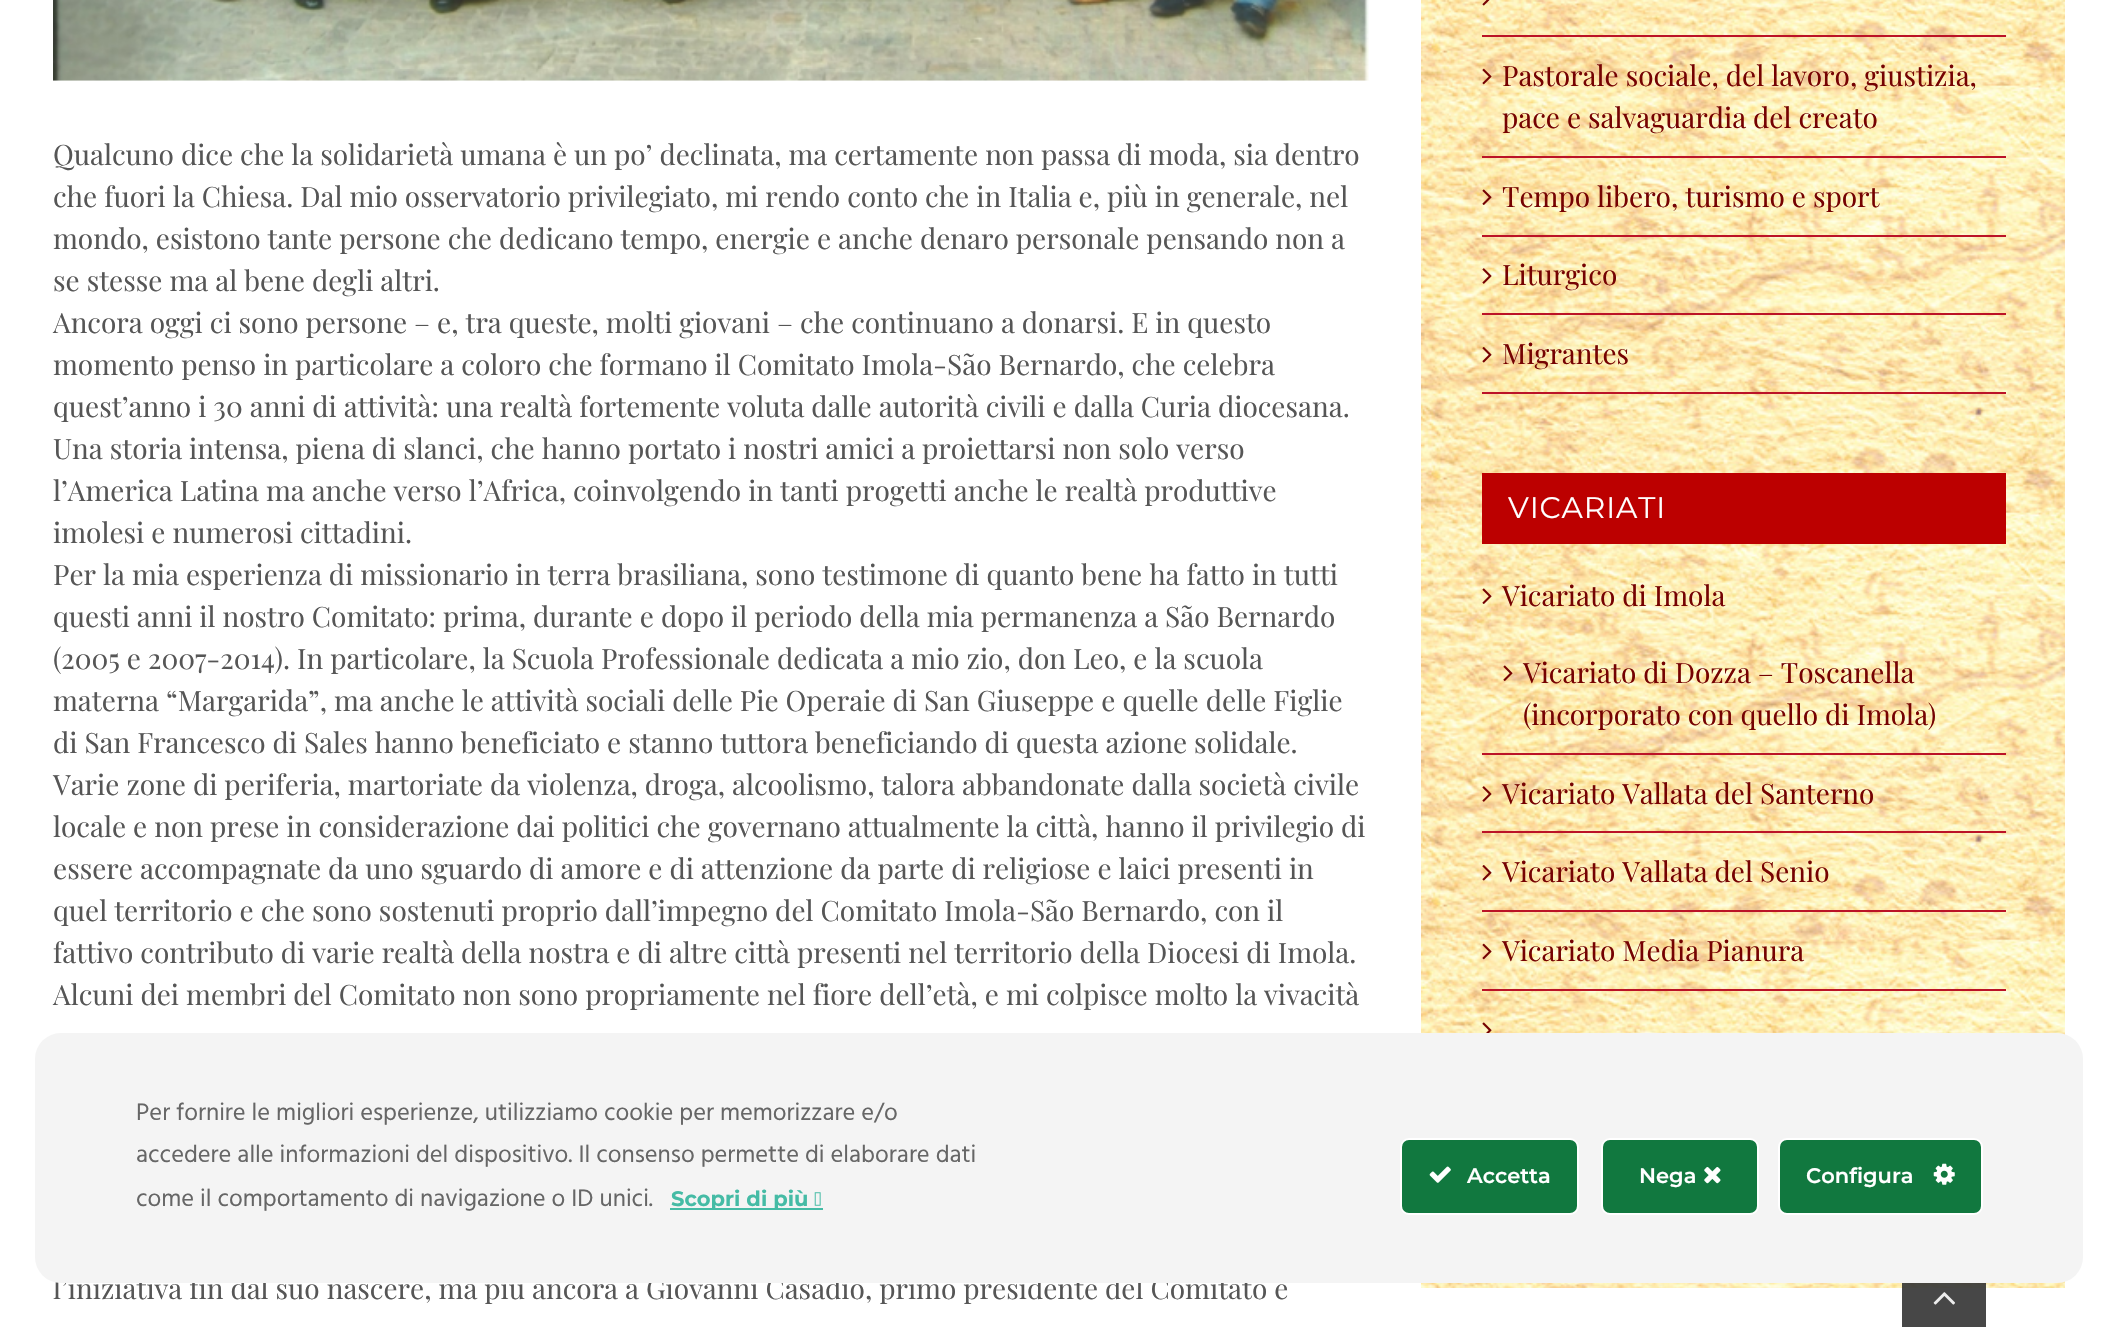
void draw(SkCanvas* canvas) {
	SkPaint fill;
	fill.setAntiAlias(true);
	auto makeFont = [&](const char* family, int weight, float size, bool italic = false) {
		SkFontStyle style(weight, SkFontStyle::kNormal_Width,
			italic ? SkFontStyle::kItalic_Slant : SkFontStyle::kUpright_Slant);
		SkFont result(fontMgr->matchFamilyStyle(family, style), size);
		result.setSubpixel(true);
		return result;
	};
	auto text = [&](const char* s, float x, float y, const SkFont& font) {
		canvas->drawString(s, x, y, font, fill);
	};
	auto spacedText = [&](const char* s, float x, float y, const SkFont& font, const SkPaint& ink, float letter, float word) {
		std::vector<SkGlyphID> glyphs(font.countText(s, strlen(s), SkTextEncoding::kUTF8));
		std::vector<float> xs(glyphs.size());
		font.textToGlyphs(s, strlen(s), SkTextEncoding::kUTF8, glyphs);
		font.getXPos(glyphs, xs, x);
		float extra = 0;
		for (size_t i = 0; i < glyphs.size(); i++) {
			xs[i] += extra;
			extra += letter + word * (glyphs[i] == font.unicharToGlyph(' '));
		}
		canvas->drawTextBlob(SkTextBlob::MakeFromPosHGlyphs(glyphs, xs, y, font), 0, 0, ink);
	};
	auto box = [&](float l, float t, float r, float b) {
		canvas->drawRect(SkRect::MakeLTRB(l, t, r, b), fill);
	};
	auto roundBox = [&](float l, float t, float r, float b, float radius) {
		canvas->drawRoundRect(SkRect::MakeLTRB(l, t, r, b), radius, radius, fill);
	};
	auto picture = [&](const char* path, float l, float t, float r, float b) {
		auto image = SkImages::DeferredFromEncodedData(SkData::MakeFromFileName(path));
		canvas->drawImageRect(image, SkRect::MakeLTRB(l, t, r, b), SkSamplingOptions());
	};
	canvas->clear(0xFFFFFFFF);
	picture("image0.png", 53, 0, 1369, 81);
	picture("image1.png", 1421, 0, 2065, 1288);
	fill.setColor(0xFFBB1327);
	box(1482, 35, 2006, 37);
	picture("image2.png", 1482, 0, 1490, 6);
	box(1482, 156, 2006, 158);
	picture("image3.png", 1482, 68, 1492, 85);
	box(1482, 235, 2006, 237);
	picture("image4.png", 1482, 189, 1492, 205);
	box(1482, 313, 2006, 315);
	picture("image5.png", 1482, 268, 1492, 284);
	box(1482, 392, 2006, 394);
	picture("image6.png", 1482, 347, 1492, 363);
	fill.setColor(0xFFBC0000);
	box(1482, 473, 2006, 544);
	fill.setColor(0xFFBB1327);
	box(1482, 753, 2006, 755);
	picture("image7.png", 1482, 588, 1492, 604);
	picture("image8.png", 1503, 665, 1513, 681);
	box(1482, 831, 2006, 833);
	picture("image9.png", 1482, 786, 1492, 802);
	box(1482, 910, 2006, 912);
	picture("image10.png", 1482, 865, 1492, 881);
	box(1482, 989, 2006, 991);
	picture("image11.png", 1482, 943, 1492, 960);
	picture("image12.png", 1482, 1022, 1492, 1033);
	fill.setColor(0xE6333333);
	box(1902, 1283, 1986, 1327);
	picture("image17.png", 1933, 1292, 1955, 1305);
	auto font1 = makeFont("Playfair Display", 400, 28);
	fill.setColor(0xFF565656);
	text("Qualcuno dice che la solidarietà umana è un po’ declinata, ma certamente non passa di moda, sia dentro", 53, 165, font1);
	text("che fuori la Chiesa. Dal mio osservatorio privilegiato, mi rendo conto che in Italia e, più in generale, nel", 53, 207, font1);
	text("mondo, esistono tante persone che dedicano tempo, energie e anche denaro personale pensando non a", 53, 249, font1);
	text("se stesse ma al bene degli altri.", 53, 291, font1);
	text("Ancora oggi ci sono persone – e, tra queste, molti giovani – che continuano a donarsi. E in questo", 53, 333, font1);
	text("momento penso in particolare a coloro che formano il Comitato Imola-São Bernardo, che celebra", 53, 375, font1);
	text("quest’anno i 30 anni di attività: una realtà fortemente voluta dalle autorità civili e dalla Curia diocesana.", 53, 417, font1);
	text("Una storia intensa, piena di slanci, che hanno portato i nostri amici a proiettarsi non solo verso", 53, 459, font1);
	text("l’America Latina ma anche verso l’Africa, coinvolgendo in tanti progetti anche le realtà produttive", 53, 501, font1);
	text("imolesi e numerosi cittadini.", 53, 543, font1);
	text("Per la mia esperienza di missionario in terra brasiliana, sono testimone di quanto bene ha fatto in tutti", 53, 585, font1);
	text("questi anni il nostro Comitato: prima, durante e dopo il periodo della mia permanenza a São Bernardo", 53, 627, font1);
	text("(2005 e 2007-2014). In particolare, la Scuola Professionale dedicata a mio zio, don Leo, e la scuola", 53, 669, font1);
	text("materna “Margarida”, ma anche le attività sociali delle Pie Operaie di San Giuseppe e quelle delle Figlie", 53, 711, font1);
	text("di San Francesco di Sales hanno beneficiato e stanno tuttora beneficiando di questa azione solidale.", 53, 753, font1);
	text("Varie zone di periferia, martoriate da violenza, droga, alcoolismo, talora abbandonate dalla società civile", 53, 795, font1);
	text("locale e non prese in considerazione dai politici che governano attualmente la città, hanno il privilegio di", 53, 837, font1);
	text("essere accompagnate da uno sguardo di amore e di attenzione da parte di religiose e laici presenti in", 53, 879, font1);
	text("quel territorio e che sono sostenuti proprio dall’impegno del Comitato Imola-São Bernardo, con il", 53, 921, font1);
	text("fattivo contributo di varie realtà della nostra e di altre città presenti nel territorio della Diocesi di Imola.", 53, 963, font1);
	text("Alcuni dei membri del Comitato non sono propriamente nel fiore dell’età, e mi colpisce molto la vivacità", 53, 1005, font1);
	text("l’iniziativa fin dal suo nascere, ma più ancora a Giovanni Casadio, primo presidente del Comitato e", 53, 1299, font1);
	fill.setColor(0xFF750202);
	text("Pastorale sociale, del lavoro, giustizia,", 1502, 86, font1);
	text("pace e salvaguardia del creato", 1502, 128, font1);
	text("Tempo libero, turismo e sport", 1502, 207, font1);
	text("Liturgico", 1502, 285, font1);
	text("Migrantes", 1502, 364, font1);
	auto font2 = makeFont("Montserrat", 400, 29.75f);
	fill.setColor(0xFFFFFFFF);
	spacedText("VICARIATI", 1508, 518, font2, fill, 0.9f, 0);
	fill.setColor(0xFF750202);
	text("Vicariato di Imola", 1502, 606, font1);
	text("Vicariato di Dozza – Toscanella", 1523, 683, font1);
	text("(incorporato con quello di Imola)", 1523, 725, font1);
	text("Vicariato Vallata del Santerno", 1502, 804, font1);
	text("Vicariato Vallata del Senio", 1502, 882, font1);
	text("Vicariato Media Pianura", 1502, 961, font1);
	fill.setColor(0xFFF4F4F4);
	roundBox(35, 1033, 2083, 1283, 26);
	auto font3 = makeFont("Hind", 400, 24.5f);
	fill.setColor(0xFF666666);
	text("Per fornire le migliori esperienze, utilizziamo cookie per memorizzare e/o", 136, 1120, font3);
	text("accedere alle informazioni del dispositivo. Il consenso permette di elaborare dati", 136, 1162, font3);
	text("come il comportamento di navigazione o ID unici.", 136, 1206, font3);
	fill.setColor(0xFF45BBA5);
	box(670, 1208, 823, 1210);
	auto font4 = makeFont("Montserrat", 700, 21);
	text("Scopri di più", 671, 1206, font4);
	picture("image13.png", 814, 1192, 821, 1206);
	fill.setColor(0xFF11783F);
	canvas->drawRoundRect(SkRect::MakeLTRB(1401, 1139, 1578, 1214), 8, 8, fill);
	fill.setStyle(SkPaint::kStroke_Style);
	fill.setStrokeWidth(2);
	fill.setColor(0xFFFFFFFF);
	canvas->drawRoundRect(SkRect::MakeLTRB(1401, 1139, 1578, 1214), 8, 8, fill);
	picture("image14.png", 1429, 1166, 1451, 1183);
	auto font5 = makeFont("Montserrat", 600, 21);
	fill.setStyle(SkPaint::kFill_Style);
	text("Accetta", 1467, 1183, font5);
	fill.setColor(0xFF11783F);
	canvas->drawRoundRect(SkRect::MakeLTRB(1602, 1139, 1758, 1214), 8, 8, fill);
	fill.setStyle(SkPaint::kStroke_Style);
	fill.setColor(0xFFFFFFFF);
	canvas->drawRoundRect(SkRect::MakeLTRB(1602, 1139, 1758, 1214), 8, 8, fill);
	fill.setStyle(SkPaint::kFill_Style);
	text("Nega", 1639, 1183, font5);
	picture("image15.png", 1704, 1167, 1721, 1184);
	fill.setColor(0xFF11783F);
	canvas->drawRoundRect(SkRect::MakeLTRB(1779, 1139, 1982, 1214), 8, 8, fill);
	fill.setStyle(SkPaint::kStroke_Style);
	fill.setColor(0xFFFFFFFF);
	canvas->drawRoundRect(SkRect::MakeLTRB(1779, 1139, 1982, 1214), 8, 8, fill);
	fill.setStyle(SkPaint::kFill_Style);
	text("Configura", 1806, 1183, font5);
	picture("image16.png", 1933, 1163, 1955, 1185);
}
